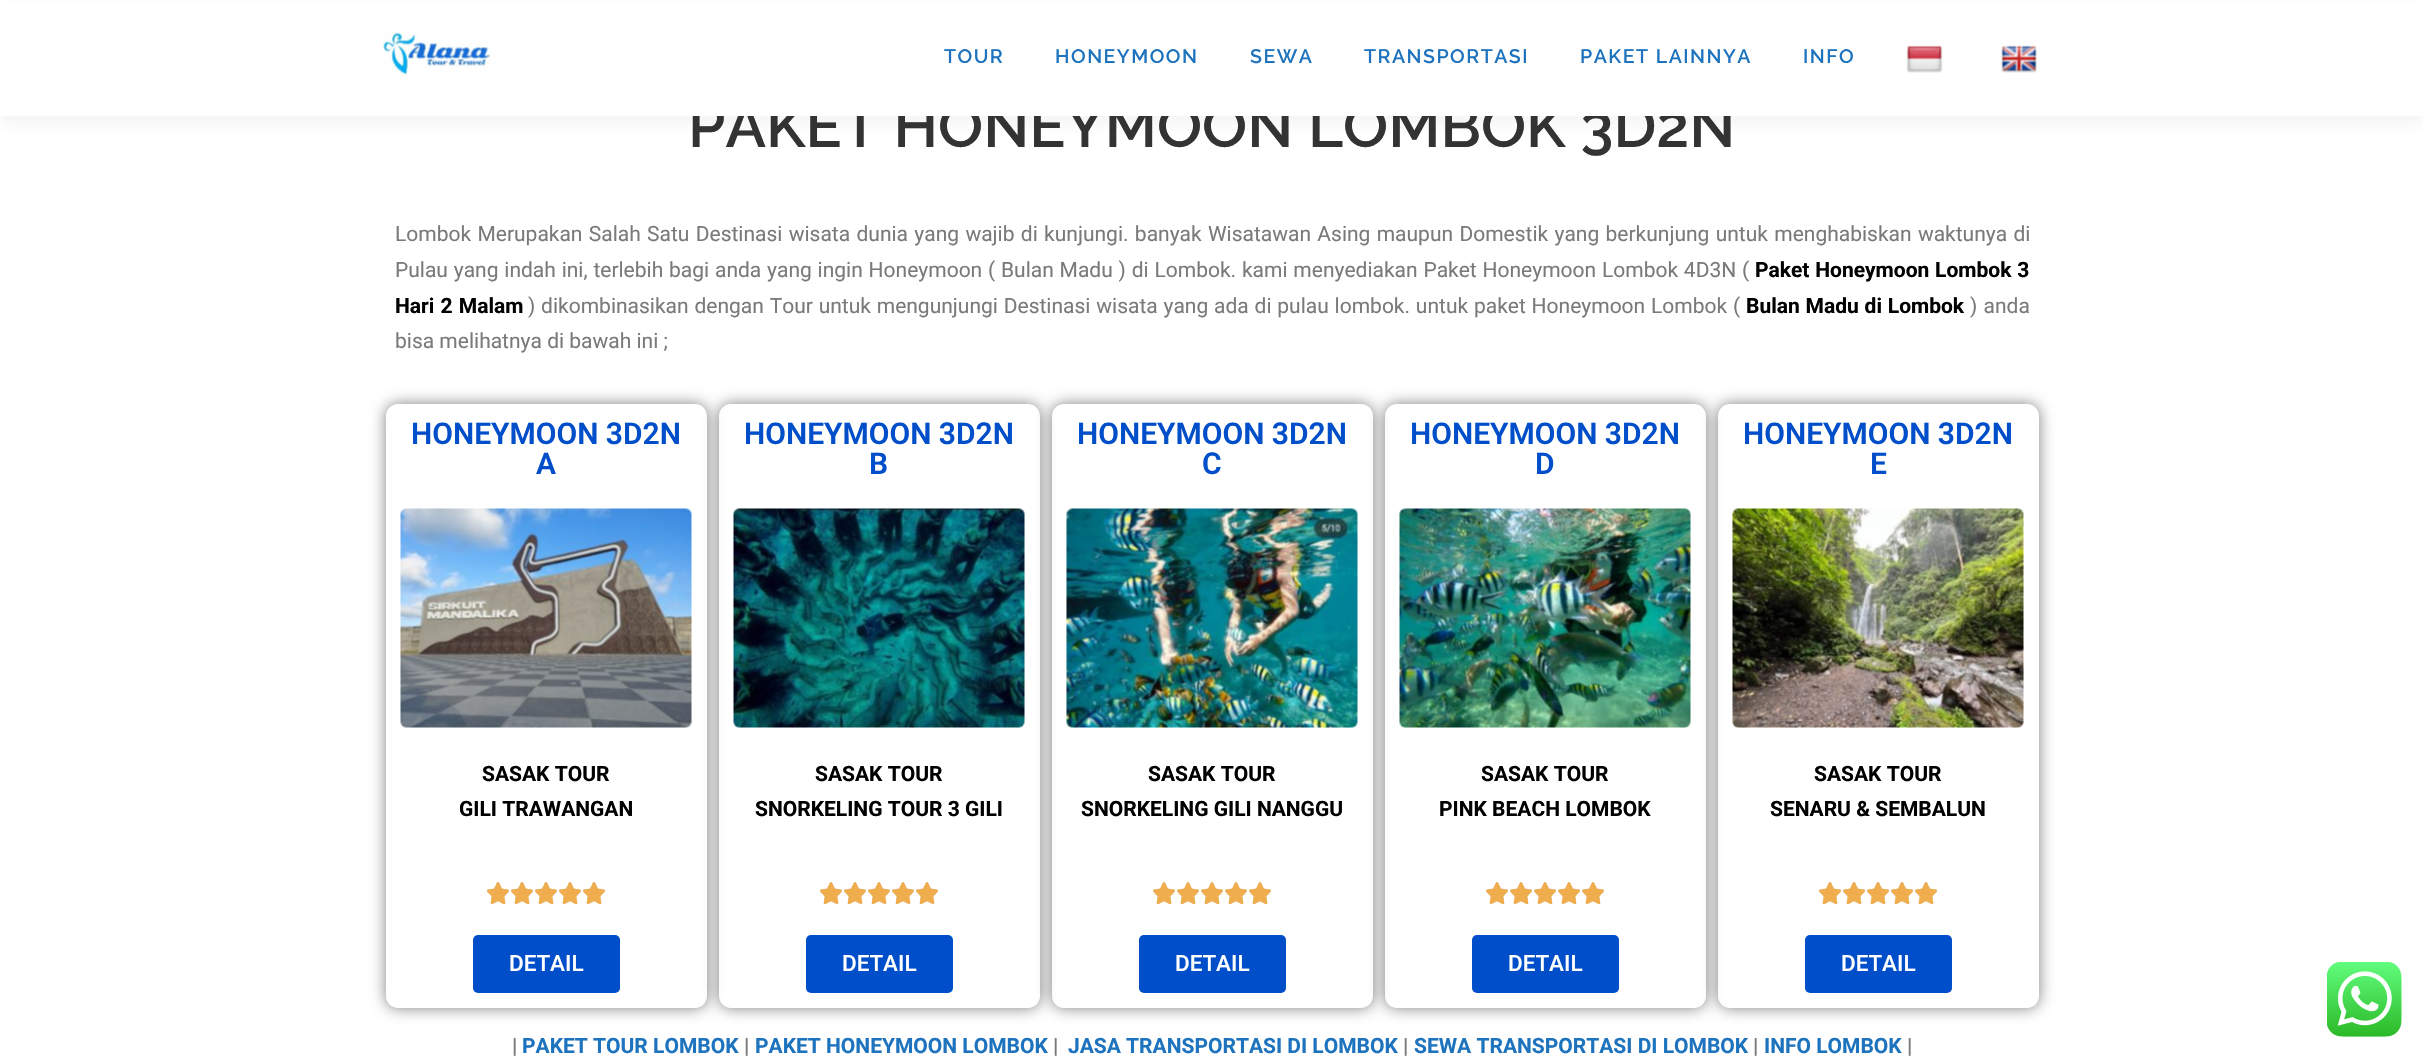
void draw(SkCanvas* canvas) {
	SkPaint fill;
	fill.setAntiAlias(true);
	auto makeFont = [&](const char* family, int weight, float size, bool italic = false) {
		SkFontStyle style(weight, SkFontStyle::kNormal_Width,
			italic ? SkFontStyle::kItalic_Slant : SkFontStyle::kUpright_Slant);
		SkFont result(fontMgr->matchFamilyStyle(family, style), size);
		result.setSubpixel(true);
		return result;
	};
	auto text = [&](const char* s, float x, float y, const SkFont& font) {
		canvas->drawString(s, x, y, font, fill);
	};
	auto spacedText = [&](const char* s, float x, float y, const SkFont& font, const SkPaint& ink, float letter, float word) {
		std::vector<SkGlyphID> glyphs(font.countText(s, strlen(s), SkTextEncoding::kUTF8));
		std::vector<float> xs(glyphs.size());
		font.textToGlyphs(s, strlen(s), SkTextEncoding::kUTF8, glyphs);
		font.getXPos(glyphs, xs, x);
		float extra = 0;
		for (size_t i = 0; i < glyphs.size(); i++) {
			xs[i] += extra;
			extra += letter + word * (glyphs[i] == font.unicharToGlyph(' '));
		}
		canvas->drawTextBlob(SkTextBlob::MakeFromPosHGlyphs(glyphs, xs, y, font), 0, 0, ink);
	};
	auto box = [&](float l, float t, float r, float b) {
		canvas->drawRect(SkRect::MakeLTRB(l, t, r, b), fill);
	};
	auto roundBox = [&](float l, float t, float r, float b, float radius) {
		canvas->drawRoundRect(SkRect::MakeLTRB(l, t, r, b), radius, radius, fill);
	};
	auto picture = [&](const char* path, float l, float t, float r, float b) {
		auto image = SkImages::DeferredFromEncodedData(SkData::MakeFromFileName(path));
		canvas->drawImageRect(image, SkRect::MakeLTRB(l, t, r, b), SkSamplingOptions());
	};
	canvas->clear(0xFFFFFFFF);
	fill.setColor(0x0F323232);
	fill.setMaskFilter(SkMaskFilter::MakeBlur(kNormal_SkBlurStyle, 7.5f));
	canvas->drawRect(SkRect::MakeLTRB(0, 8, 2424, 123), fill);
	fill.setMaskFilter(nullptr);
	canvas->save();
	canvas->clipPath(SkPathBuilder(SkPathFillType::kEvenOdd).moveTo(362, 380).lineTo(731, 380).lineTo(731, 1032).lineTo(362, 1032).close().moveTo(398, 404).lineTo(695, 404).cubicTo(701.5f, 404, 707, 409.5f, 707, 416).lineTo(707, 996).cubicTo(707, 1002.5f, 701.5f, 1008, 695, 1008).lineTo(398, 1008).cubicTo(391.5f, 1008, 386, 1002.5f, 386, 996).lineTo(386, 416).cubicTo(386, 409.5f, 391.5f, 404, 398, 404).close().detach(), true);
	fill.setColor(0x80000000);
	fill.setMaskFilter(SkMaskFilter::MakeBlur(kNormal_SkBlurStyle, 7.5f));
	canvas->drawRoundRect(SkRect::MakeLTRB(386, 404, 707, 1008), 12, 12, fill);
	fill.setMaskFilter(nullptr);
	canvas->restore();
	picture("image3.png", 400, 508, 692, 728);
	picture("image4.png", 487, 882, 509, 904);
	picture("image5.png", 487, 882, 509, 905);
	picture("image4.png", 511, 882, 533, 904);
	picture("image5.png", 511, 882, 533, 905);
	picture("image4.png", 535, 882, 557, 904);
	picture("image5.png", 535, 882, 557, 905);
	picture("image4.png", 559, 882, 581, 904);
	picture("image5.png", 559, 882, 581, 905);
	picture("image4.png", 583, 882, 605, 904);
	picture("image5.png", 583, 882, 605, 905);
	fill.setColor(0xFF004EC9);
	roundBox(473, 935, 620, 993, 5);
	canvas->save();
	canvas->clipPath(SkPathBuilder(SkPathFillType::kEvenOdd).moveTo(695, 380).lineTo(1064, 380).lineTo(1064, 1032).lineTo(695, 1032).close().moveTo(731, 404).lineTo(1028, 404).cubicTo(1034.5f, 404, 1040, 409.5f, 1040, 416).lineTo(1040, 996).cubicTo(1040, 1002.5f, 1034.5f, 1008, 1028, 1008).lineTo(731, 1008).cubicTo(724.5f, 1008, 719, 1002.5f, 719, 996).lineTo(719, 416).cubicTo(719, 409.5f, 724.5f, 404, 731, 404).close().detach(), true);
	fill.setColor(0x80000000);
	fill.setMaskFilter(SkMaskFilter::MakeBlur(kNormal_SkBlurStyle, 7.5f));
	canvas->drawRoundRect(SkRect::MakeLTRB(719, 404, 1040, 1008), 12, 12, fill);
	fill.setMaskFilter(nullptr);
	canvas->restore();
	picture("image6.png", 733, 508, 1025, 728);
	picture("image4.png", 820, 882, 842, 904);
	picture("image5.png", 820, 882, 842, 905);
	picture("image4.png", 844, 882, 866, 904);
	picture("image5.png", 844, 882, 866, 905);
	picture("image4.png", 868, 882, 890, 904);
	picture("image5.png", 868, 882, 890, 905);
	picture("image4.png", 892, 882, 914, 904);
	picture("image5.png", 892, 882, 914, 905);
	picture("image4.png", 916, 882, 938, 904);
	picture("image5.png", 916, 882, 938, 905);
	fill.setColor(0xFF004EC9);
	roundBox(806, 935, 953, 993, 5);
	canvas->save();
	canvas->clipPath(SkPathBuilder(SkPathFillType::kEvenOdd).moveTo(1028, 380).lineTo(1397, 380).lineTo(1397, 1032).lineTo(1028, 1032).close().moveTo(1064, 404).lineTo(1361, 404).cubicTo(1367.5f, 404, 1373, 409.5f, 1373, 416).lineTo(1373, 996).cubicTo(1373, 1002.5f, 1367.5f, 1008, 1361, 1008).lineTo(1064, 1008).cubicTo(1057.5f, 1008, 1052, 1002.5f, 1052, 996).lineTo(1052, 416).cubicTo(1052, 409.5f, 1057.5f, 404, 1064, 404).close().detach(), true);
	fill.setColor(0x80000000);
	fill.setMaskFilter(SkMaskFilter::MakeBlur(kNormal_SkBlurStyle, 7.5f));
	canvas->drawRoundRect(SkRect::MakeLTRB(1052, 404, 1373, 1008), 12, 12, fill);
	fill.setMaskFilter(nullptr);
	canvas->restore();
	picture("image7.png", 1066, 508, 1358, 728);
	picture("image4.png", 1153, 882, 1175, 904);
	picture("image5.png", 1153, 882, 1175, 905);
	picture("image4.png", 1177, 882, 1199, 904);
	picture("image5.png", 1177, 882, 1199, 905);
	picture("image4.png", 1201, 882, 1223, 904);
	picture("image5.png", 1201, 882, 1223, 905);
	picture("image4.png", 1225, 882, 1247, 904);
	picture("image5.png", 1225, 882, 1247, 905);
	picture("image4.png", 1249, 882, 1271, 904);
	picture("image5.png", 1249, 882, 1271, 905);
	fill.setColor(0xFF004EC9);
	roundBox(1139, 935, 1286, 993, 5);
	canvas->save();
	canvas->clipPath(SkPathBuilder(SkPathFillType::kEvenOdd).moveTo(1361, 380).lineTo(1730, 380).lineTo(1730, 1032).lineTo(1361, 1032).close().moveTo(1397, 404).lineTo(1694, 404).cubicTo(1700.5f, 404, 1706, 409.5f, 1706, 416).lineTo(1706, 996).cubicTo(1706, 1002.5f, 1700.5f, 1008, 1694, 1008).lineTo(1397, 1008).cubicTo(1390.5f, 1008, 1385, 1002.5f, 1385, 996).lineTo(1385, 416).cubicTo(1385, 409.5f, 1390.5f, 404, 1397, 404).close().detach(), true);
	fill.setColor(0x80000000);
	fill.setMaskFilter(SkMaskFilter::MakeBlur(kNormal_SkBlurStyle, 7.5f));
	canvas->drawRoundRect(SkRect::MakeLTRB(1385, 404, 1706, 1008), 12, 12, fill);
	fill.setMaskFilter(nullptr);
	canvas->restore();
	picture("image8.png", 1399, 508, 1691, 728);
	picture("image4.png", 1486, 882, 1508, 904);
	picture("image5.png", 1486, 882, 1508, 905);
	picture("image4.png", 1510, 882, 1532, 904);
	picture("image5.png", 1510, 882, 1532, 905);
	picture("image4.png", 1534, 882, 1556, 904);
	picture("image5.png", 1534, 882, 1556, 905);
	picture("image4.png", 1558, 882, 1580, 904);
	picture("image5.png", 1558, 882, 1580, 905);
	picture("image4.png", 1582, 882, 1604, 904);
	picture("image5.png", 1582, 882, 1604, 905);
	fill.setColor(0xFF004EC9);
	roundBox(1472, 935, 1619, 993, 5);
	canvas->save();
	canvas->clipPath(SkPathBuilder(SkPathFillType::kEvenOdd).moveTo(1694, 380).lineTo(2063, 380).lineTo(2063, 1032).lineTo(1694, 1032).close().moveTo(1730, 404).lineTo(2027, 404).cubicTo(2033.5f, 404, 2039, 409.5f, 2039, 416).lineTo(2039, 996).cubicTo(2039, 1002.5f, 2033.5f, 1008, 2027, 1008).lineTo(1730, 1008).cubicTo(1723.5f, 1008, 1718, 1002.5f, 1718, 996).lineTo(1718, 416).cubicTo(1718, 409.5f, 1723.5f, 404, 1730, 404).close().detach(), true);
	fill.setColor(0x80000000);
	fill.setMaskFilter(SkMaskFilter::MakeBlur(kNormal_SkBlurStyle, 7.5f));
	canvas->drawRoundRect(SkRect::MakeLTRB(1718, 404, 2039, 1008), 12, 12, fill);
	fill.setMaskFilter(nullptr);
	canvas->restore();
	picture("image9.png", 1732, 508, 2024, 728);
	picture("image4.png", 1819, 882, 1841, 904);
	picture("image5.png", 1819, 882, 1841, 905);
	picture("image4.png", 1843, 882, 1865, 904);
	picture("image5.png", 1843, 882, 1865, 905);
	picture("image4.png", 1867, 882, 1889, 904);
	picture("image5.png", 1867, 882, 1889, 905);
	picture("image4.png", 1891, 882, 1913, 904);
	picture("image5.png", 1891, 882, 1913, 905);
	picture("image4.png", 1915, 882, 1937, 904);
	picture("image5.png", 1915, 882, 1937, 905);
	fill.setColor(0xFF004EC9);
	roundBox(1805, 935, 1952, 993, 5);
	picture("image10.png", 2327, 962, 2402, 1037);
	auto font1 = makeFont("Raleway", 600, 60);
	fill.setColor(0xFF333333);
	text("PAKET HONEYMOON LOMBOK 3D2N", 688, 147, font1);
	fill.setColor(0xFFFFFFFF);
	box(0, 2, 2423, 116);
	picture("image2.png", 2001, 45, 2037, 73);
	picture("image1.png", 1906, 45, 1943, 73);
	auto font2 = makeFont("Raleway", 600, 19.5f);
	fill.setColor(0xFF1E73BE);
	spacedText("INFO", 1803, 63, font2, fill, 1.5f, 0);
	spacedText("PAKET LAINNYA", 1580, 63, font2, fill, 1.5f, 0);
	spacedText("TRANSPORTASI", 1364, 63, font2, fill, 1.5f, 0);
	spacedText("SEWA", 1250, 63, font2, fill, 1.5f, 0);
	spacedText("HONEYMOON", 1055, 63, font2, fill, 1.5f, 0);
	spacedText("TOUR", 944, 63, font2, fill, 1.5f, 0);
	picture("image0.png", 383, 31, 491, 75);
	auto font3 = makeFont("Roboto", 400, 21);
	fill.setColor(0xFF7A7A7A);
	spacedText("Lombok Merupakan Salah Satu Destinasi wisata dunia yang wajib di kunjungi. banyak Wisatawan Asing maupun Domestik yang berkunjung untuk menghabiskan waktunya di", 395, 241, font3, fill, 0, 1.1f);
	spacedText("Pulau yang indah ini, terlebih bagi anda yang ingin Honeymoon ( Bulan Madu ) di Lombok. kami menyediakan Paket Honeymoon Lombok 4D3N (", 395, 277, font3, fill, 0, 0.6f);
	auto font4 = makeFont("Roboto", 700, 21);
	fill.setColor(0xFF000000);
	spacedText("Paket Honeymoon Lombok 3", 1755, 277, font4, fill, 0, 0.6f);
	spacedText("Hari 2 Malam", 395, 313, font4, fill, 0, 1);
	fill.setColor(0xFF7A7A7A);
	spacedText(") dikombinasikan dengan Tour untuk mengunjungi Destinasi wisata yang ada di pulau lombok. untuk paket Honeymoon Lombok (", 528, 313, font3, fill, 0, 0.6f);
	fill.setColor(0xFF000000);
	spacedText("Bulan Madu di Lombok", 1746, 313, font4, fill, 0, 0.6f);
	fill.setColor(0xFF7A7A7A);
	spacedText(") anda", 1970, 313, font3, fill, 0, 1);
	text("bisa melihatnya di bawah ini ;", 395, 348, font3);
	auto font5 = makeFont("Roboto", 600, 30);
	fill.setColor(0xFF004EC9);
	text("HONEYMOON 3D2N", 411, 444, font5);
	text("A", 536, 474, font5);
	fill.setColor(0xFF000000);
	text("SASAK TOUR", 482, 781, font4);
	text("GILI TRAWANGAN", 459, 816, font4);
	auto font6 = makeFont("Roboto", 500, 22.5f);
	fill.setColor(0xFFFFFFFF);
	text("DETAIL", 509, 971, font6);
	fill.setColor(0xFF004EC9);
	text("HONEYMOON 3D2N", 744, 444, font5);
	text("B", 869, 474, font5);
	fill.setColor(0xFF000000);
	text("SASAK TOUR", 815, 781, font4);
	text("SNORKELING TOUR 3 GILI", 755, 816, font4);
	fill.setColor(0xFFFFFFFF);
	text("DETAIL", 842, 971, font6);
	fill.setColor(0xFF004EC9);
	text("HONEYMOON 3D2N", 1077, 444, font5);
	text("C", 1202, 474, font5);
	fill.setColor(0xFF000000);
	text("SASAK TOUR", 1148, 781, font4);
	text("SNORKELING GILI NANGGU", 1081, 816, font4);
	fill.setColor(0xFFFFFFFF);
	text("DETAIL", 1175, 971, font6);
	fill.setColor(0xFF004EC9);
	text("HONEYMOON 3D2N", 1410, 444, font5);
	text("D", 1535, 474, font5);
	fill.setColor(0xFF000000);
	text("SASAK TOUR", 1481, 781, font4);
	text("PINK BEACH LOMBOK", 1439, 816, font4);
	fill.setColor(0xFFFFFFFF);
	text("DETAIL", 1508, 971, font6);
	fill.setColor(0xFF004EC9);
	text("HONEYMOON 3D2N", 1743, 444, font5);
	text("E", 1870, 474, font5);
	fill.setColor(0xFF000000);
	text("SASAK TOUR", 1814, 781, font4);
	text("SENARU & SEMBALUN", 1770, 816, font4);
	fill.setColor(0xFFFFFFFF);
	text("DETAIL", 1841, 971, font6);
	fill.setColor(0xFF7A7A7A);
	text("|", 512, 1053, font4);
	fill.setColor(0xFF1E73BE);
	text("PAKET TOUR LOMBOK", 522, 1053, font4);
	fill.setColor(0xFF7A7A7A);
	text("|", 744, 1053, font4);
	fill.setColor(0xFF1E73BE);
	text("PAKET HONEYMOON LOMBOK", 755, 1053, font4);
	fill.setColor(0xFF7A7A7A);
	text("|", 1053, 1053, font4);
	fill.setColor(0xFF1E73BE);
	text("JASA TRANSPORTASI DI LOMBOK", 1068, 1053, font4);
	fill.setColor(0xFF7A7A7A);
	text("|", 1403, 1053, font4);
	fill.setColor(0xFF1E73BE);
	text("SEWA TRANSPORTASI DI LOMBOK", 1414, 1053, font4);
	fill.setColor(0xFF7A7A7A);
	text("|", 1753, 1053, font4);
	fill.setColor(0xFF1E73BE);
	text("INFO LOMBOK", 1764, 1053, font4);
	fill.setColor(0xFF7A7A7A);
	text("|", 1907, 1053, font4);
}
